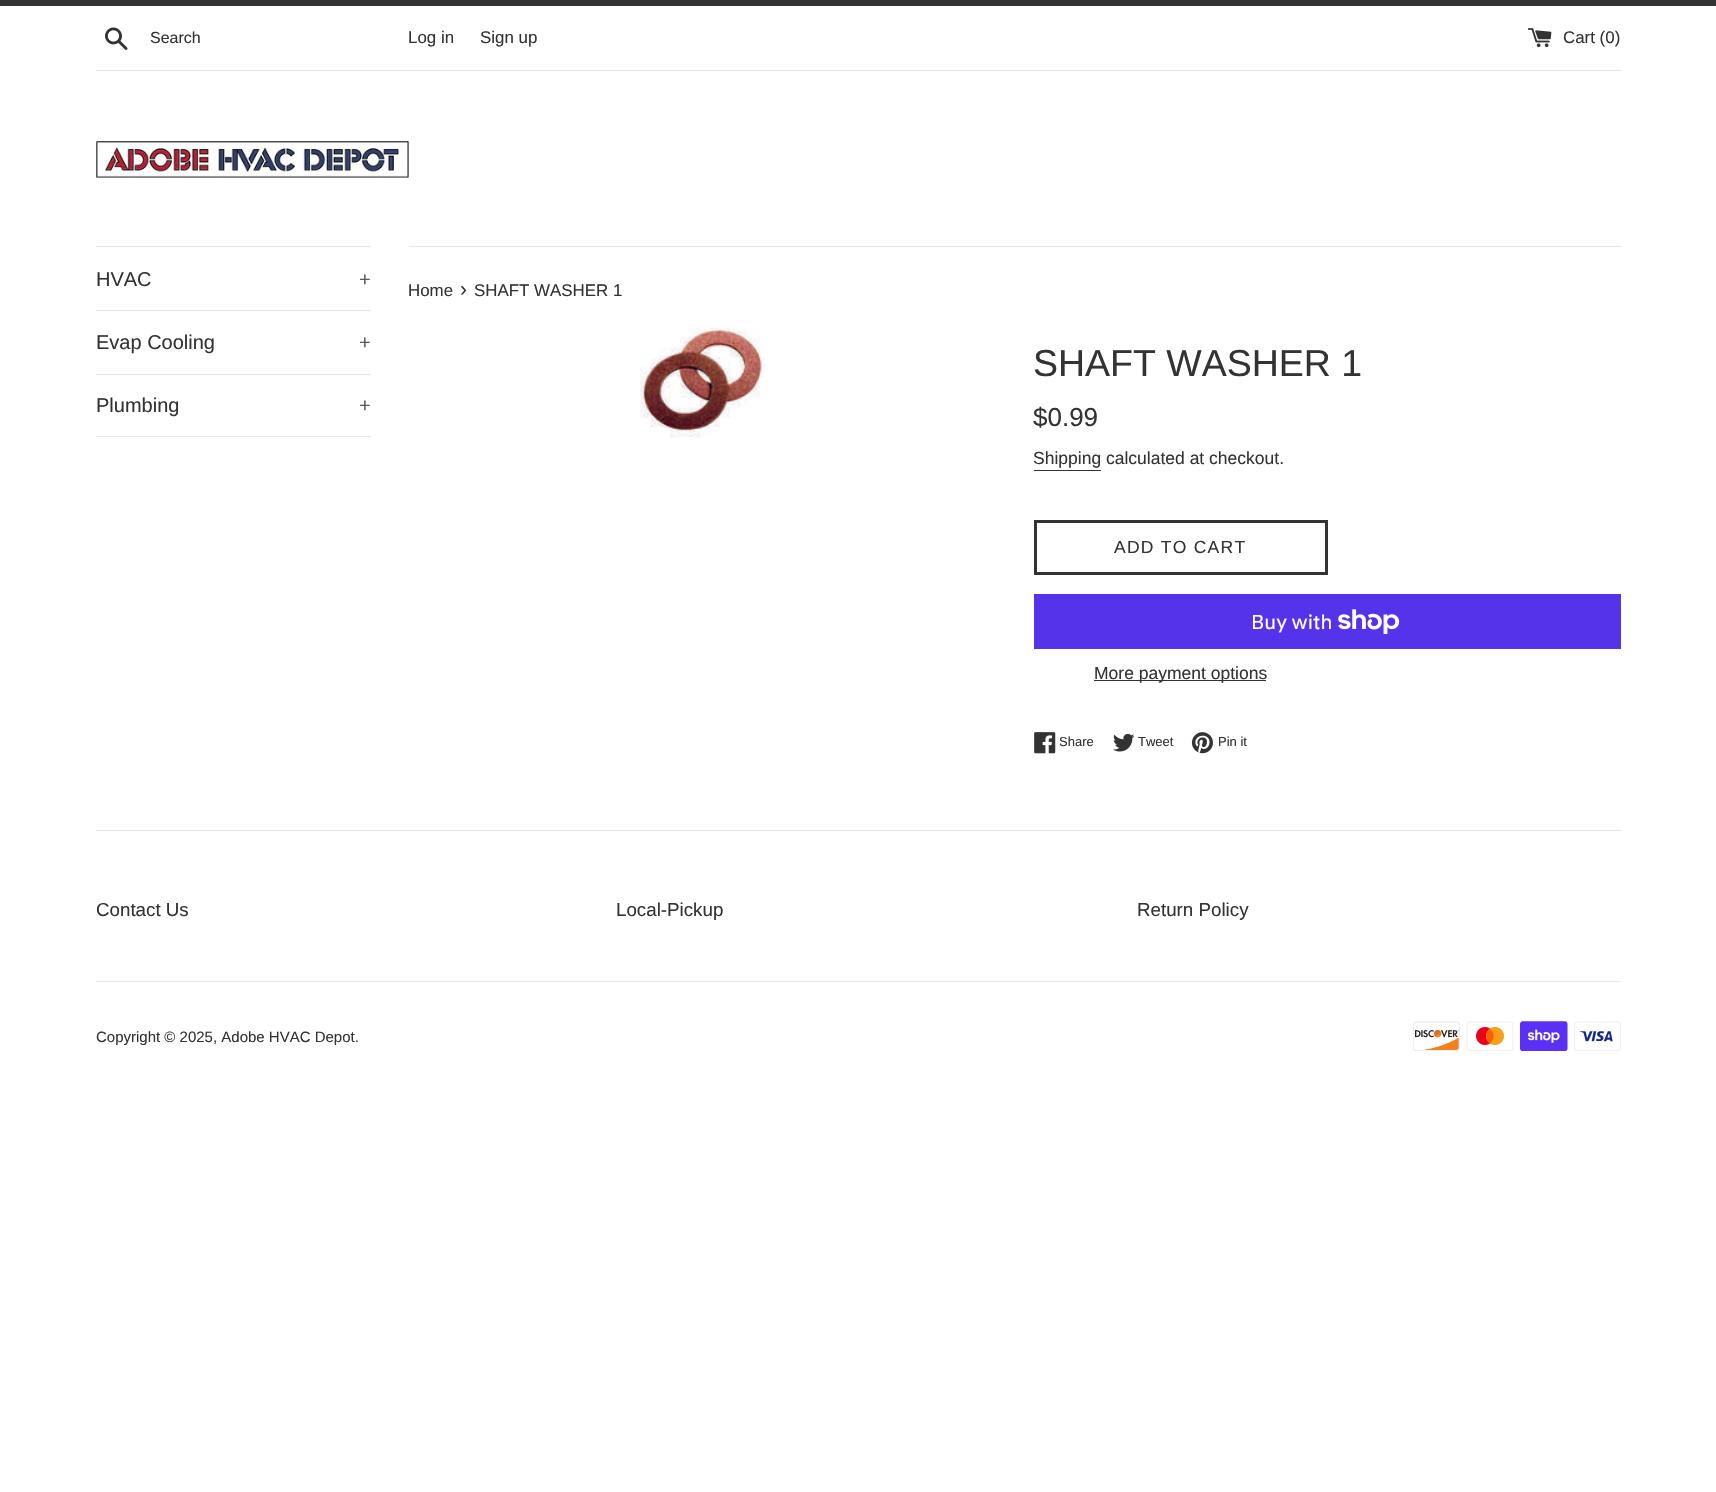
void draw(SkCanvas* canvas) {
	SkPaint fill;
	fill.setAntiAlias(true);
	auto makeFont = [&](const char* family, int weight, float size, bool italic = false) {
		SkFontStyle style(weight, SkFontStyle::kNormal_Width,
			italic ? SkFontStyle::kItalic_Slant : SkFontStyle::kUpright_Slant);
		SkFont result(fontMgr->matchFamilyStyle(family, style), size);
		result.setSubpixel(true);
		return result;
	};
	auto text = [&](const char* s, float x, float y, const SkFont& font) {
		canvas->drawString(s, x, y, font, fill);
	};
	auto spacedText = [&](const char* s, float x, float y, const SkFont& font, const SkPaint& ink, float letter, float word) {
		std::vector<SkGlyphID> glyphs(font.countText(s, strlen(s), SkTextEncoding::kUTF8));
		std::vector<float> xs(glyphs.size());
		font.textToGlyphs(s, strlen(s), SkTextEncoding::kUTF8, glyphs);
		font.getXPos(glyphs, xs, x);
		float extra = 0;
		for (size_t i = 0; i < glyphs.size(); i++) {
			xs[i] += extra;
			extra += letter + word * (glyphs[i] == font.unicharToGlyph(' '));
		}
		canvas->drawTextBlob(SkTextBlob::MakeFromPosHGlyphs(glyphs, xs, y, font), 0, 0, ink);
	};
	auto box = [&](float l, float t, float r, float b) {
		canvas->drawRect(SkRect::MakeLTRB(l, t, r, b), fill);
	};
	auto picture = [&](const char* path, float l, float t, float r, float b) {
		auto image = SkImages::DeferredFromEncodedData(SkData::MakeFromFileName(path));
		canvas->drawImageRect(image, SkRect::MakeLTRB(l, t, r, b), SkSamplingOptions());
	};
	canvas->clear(0xFFFFFFFF);
	fill.setColor(0xFF333333);
	box(0, 0, 1716, 6);
	picture("image0.png", 105, 27, 128, 50);
	picture("image1.png", 1528, 28, 1552, 48);
	fill.setColor(0xFFE8E8E8);
	box(96, 70, 1621, 71);
	picture("image2.png", 96, 141, 409, 178);
	box(96, 246, 371, 247);
	box(96, 310, 371, 311);
	box(96, 374, 371, 375);
	box(96, 436, 371, 437);
	box(409, 246, 1621, 247);
	picture("image3.png", 640, 327, 765, 438);
	fill.setColor(0xFF333333);
	box(1034, 470, 1101, 471);
	fill.setStyle(SkPaint::kStroke_Style);
	fill.setStrokeWidth(3);
	canvas->drawRect(SkRect::MakeLTRB(1035.5f, 521.5f, 1326.5f, 573.5f), fill);
	fill.setStyle(SkPaint::kFill_Style);
	fill.setColor(0xFF5433EB);
	box(1034, 594, 1621, 649);
	picture("image4.png", 1338, 609, 1400, 634);
	fill.setColor(0xFF333333);
	box(1094, 680, 1266, 681);
	picture("image5.png", 1034, 732, 1056, 754);
	picture("image6.png", 1113, 733, 1135, 752);
	picture("image7.png", 1191, 732, 1213, 754);
	fill.setColor(0xFFE8E8E8);
	box(96, 830, 1621, 831);
	box(96, 981, 1621, 982);
	picture("image8.png", 1413, 1021, 1460, 1051);
	picture("image9.png", 1466, 1021, 1514, 1051);
	picture("image10.png", 1520, 1021, 1568, 1051);
	picture("image11.png", 1574, 1021, 1621, 1051);
	auto font1 = makeFont("Liberation Sans", 400, 16);
	fill.setColor(0xFF333333);
	text("Search", 150, 43, font1);
	auto font2 = makeFont("Liberation Sans", 400, 16.9f);
	text("Log in", 408, 43, font2);
	text("Sign up", 480, 43, font2);
	text("Cart (0)", 1563, 43, font2);
	auto font3 = makeFont("Liberation Sans", 400, 20);
	text("HVAC", 96, 286, font3);
	fill.setColor(0xFF5C5C5C);
	text("+", 359, 286, font3);
	fill.setColor(0xFF333333);
	text("Evap Cooling", 96, 349, font3);
	fill.setColor(0xFF5C5C5C);
	text("+", 359, 349, font3);
	fill.setColor(0xFF333333);
	text("Plumbing", 96, 412, font3);
	fill.setColor(0xFF5C5C5C);
	text("+", 359, 412, font3);
	fill.setColor(0xFF333333);
	text("Home", 408, 296, font2);
	auto font4 = makeFont("Liberation Sans", 400, 21);
	text("›", 460, 296, font4);
	text("SHAFT WASHER 1", 474, 296, font2);
	auto font5 = makeFont("Arimo", 400, 37.5f);
	text("SHAFT WASHER 1", 1033, 376, font5);
	auto font6 = makeFont("Liberation Sans", 400, 26);
	text("$0.99", 1033, 426, font6);
	auto font7 = makeFont("Liberation Sans", 400, 17.5f);
	text("Shipping calculated at checkout.", 1033, 464, font7);
	spacedText("ADD TO CART", 1114, 553, font7, fill, 1.25f, 0);
	auto font8 = makeFont("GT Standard", 400, 20);
	fill.setColor(0xFFFFFFFF);
	text("Buy with", 1251, 629, font8);
	fill.setColor(0xFF333333);
	text("More payment options", 1094, 679, font7);
	auto font9 = makeFont("Liberation Sans", 400, 13);
	text("Share", 1059, 746, font9);
	text("Tweet", 1138, 746, font9);
	text("Pin it", 1218, 746, font9);
	auto font10 = makeFont("Liberation Sans", 400, 18.75f);
	text("Contact Us", 96, 916, font10);
	text("Local-Pickup", 616, 916, font10);
	text("Return Policy", 1137, 916, font10);
	auto font11 = makeFont("Liberation Sans", 400, 15);
	text("Copyright © 2025, Adobe HVAC Depot.", 96, 1042, font11);
}
